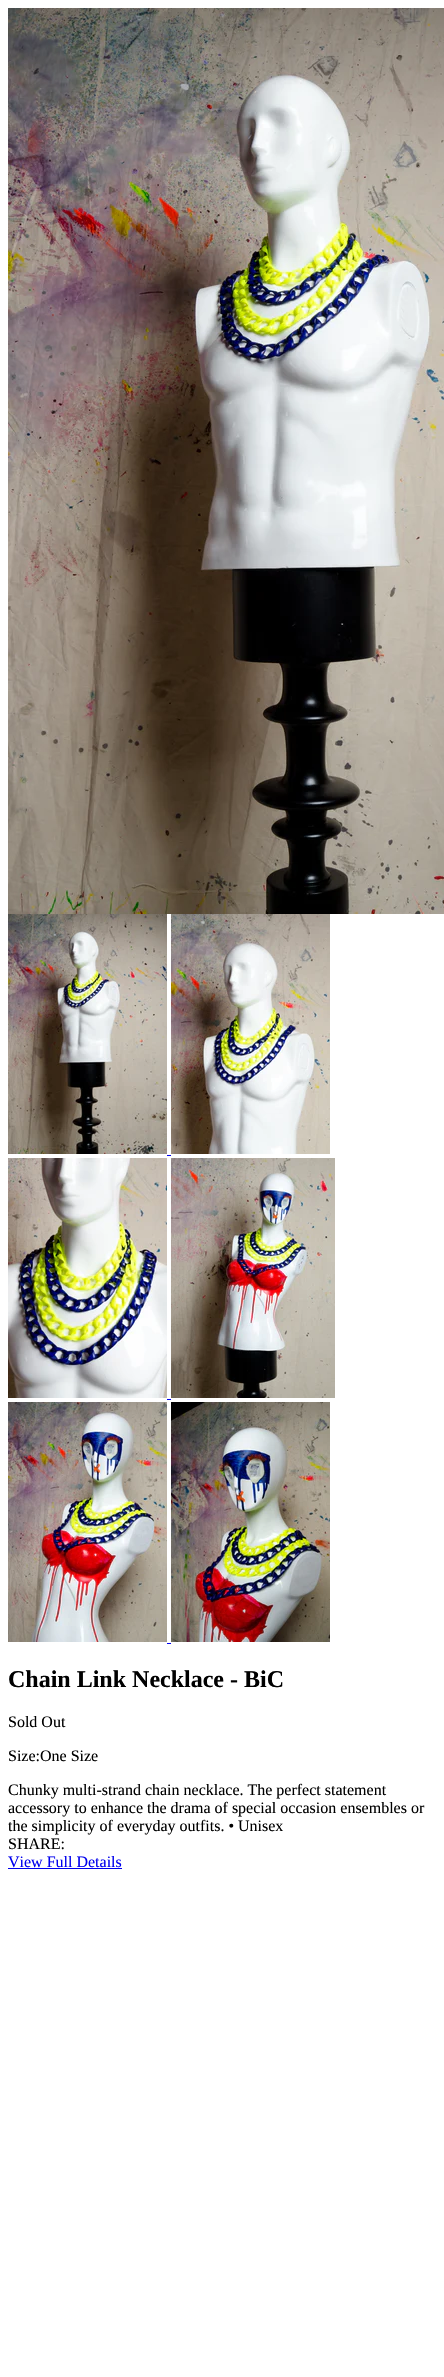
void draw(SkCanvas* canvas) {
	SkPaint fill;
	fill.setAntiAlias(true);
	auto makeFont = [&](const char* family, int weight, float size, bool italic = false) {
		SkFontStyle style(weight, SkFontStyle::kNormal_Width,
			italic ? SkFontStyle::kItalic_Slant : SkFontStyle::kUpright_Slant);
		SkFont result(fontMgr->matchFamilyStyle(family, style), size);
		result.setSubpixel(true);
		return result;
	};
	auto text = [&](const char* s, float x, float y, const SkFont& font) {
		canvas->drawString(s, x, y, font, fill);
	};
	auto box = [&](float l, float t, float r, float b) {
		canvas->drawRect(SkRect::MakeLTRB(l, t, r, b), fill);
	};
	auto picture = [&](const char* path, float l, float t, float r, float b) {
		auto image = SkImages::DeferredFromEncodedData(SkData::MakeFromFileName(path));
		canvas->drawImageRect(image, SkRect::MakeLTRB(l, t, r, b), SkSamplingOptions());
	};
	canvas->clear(0xFFFFFFFF);
	picture("image0.png", 8, 8, 444, 914);
	picture("image1.png", 8, 914, 167, 1154);
	picture("image2.png", 171, 914, 330, 1154);
	fill.setColor(0xFF0000EE);
	box(167, 1155, 171, 1156);
	picture("image3.png", 8, 1158, 167, 1398);
	picture("image4.png", 171, 1158, 335, 1398);
	box(167, 1399, 171, 1400);
	picture("image5.png", 8, 1402, 167, 1642);
	picture("image6.png", 171, 1402, 330, 1642);
	box(167, 1643, 171, 1644);
	box(8, 1868, 122, 1869);
	auto font1 = makeFont("Liberation Serif", 700, 24);
	fill.setColor(0xFF000000);
	text("Chain Link Necklace - BiC", 8, 1687, font1);
	auto font2 = makeFont("Liberation Serif", 400, 16);
	text("Sold Out", 8, 1727, font2);
	text("Size:One Size", 8, 1761, font2);
	text("Chunky multi-strand chain necklace. The perfect statement", 8, 1795, font2);
	text("accessory to enhance the drama of special occasion ensembles or", 8, 1813, font2);
	text("the simplicity of everyday outfits. • Unisex", 8, 1831, font2);
	text("SHARE:", 8, 1849, font2);
	fill.setColor(0xFF0000EE);
	text("View Full Details", 8, 1867, font2);
}
